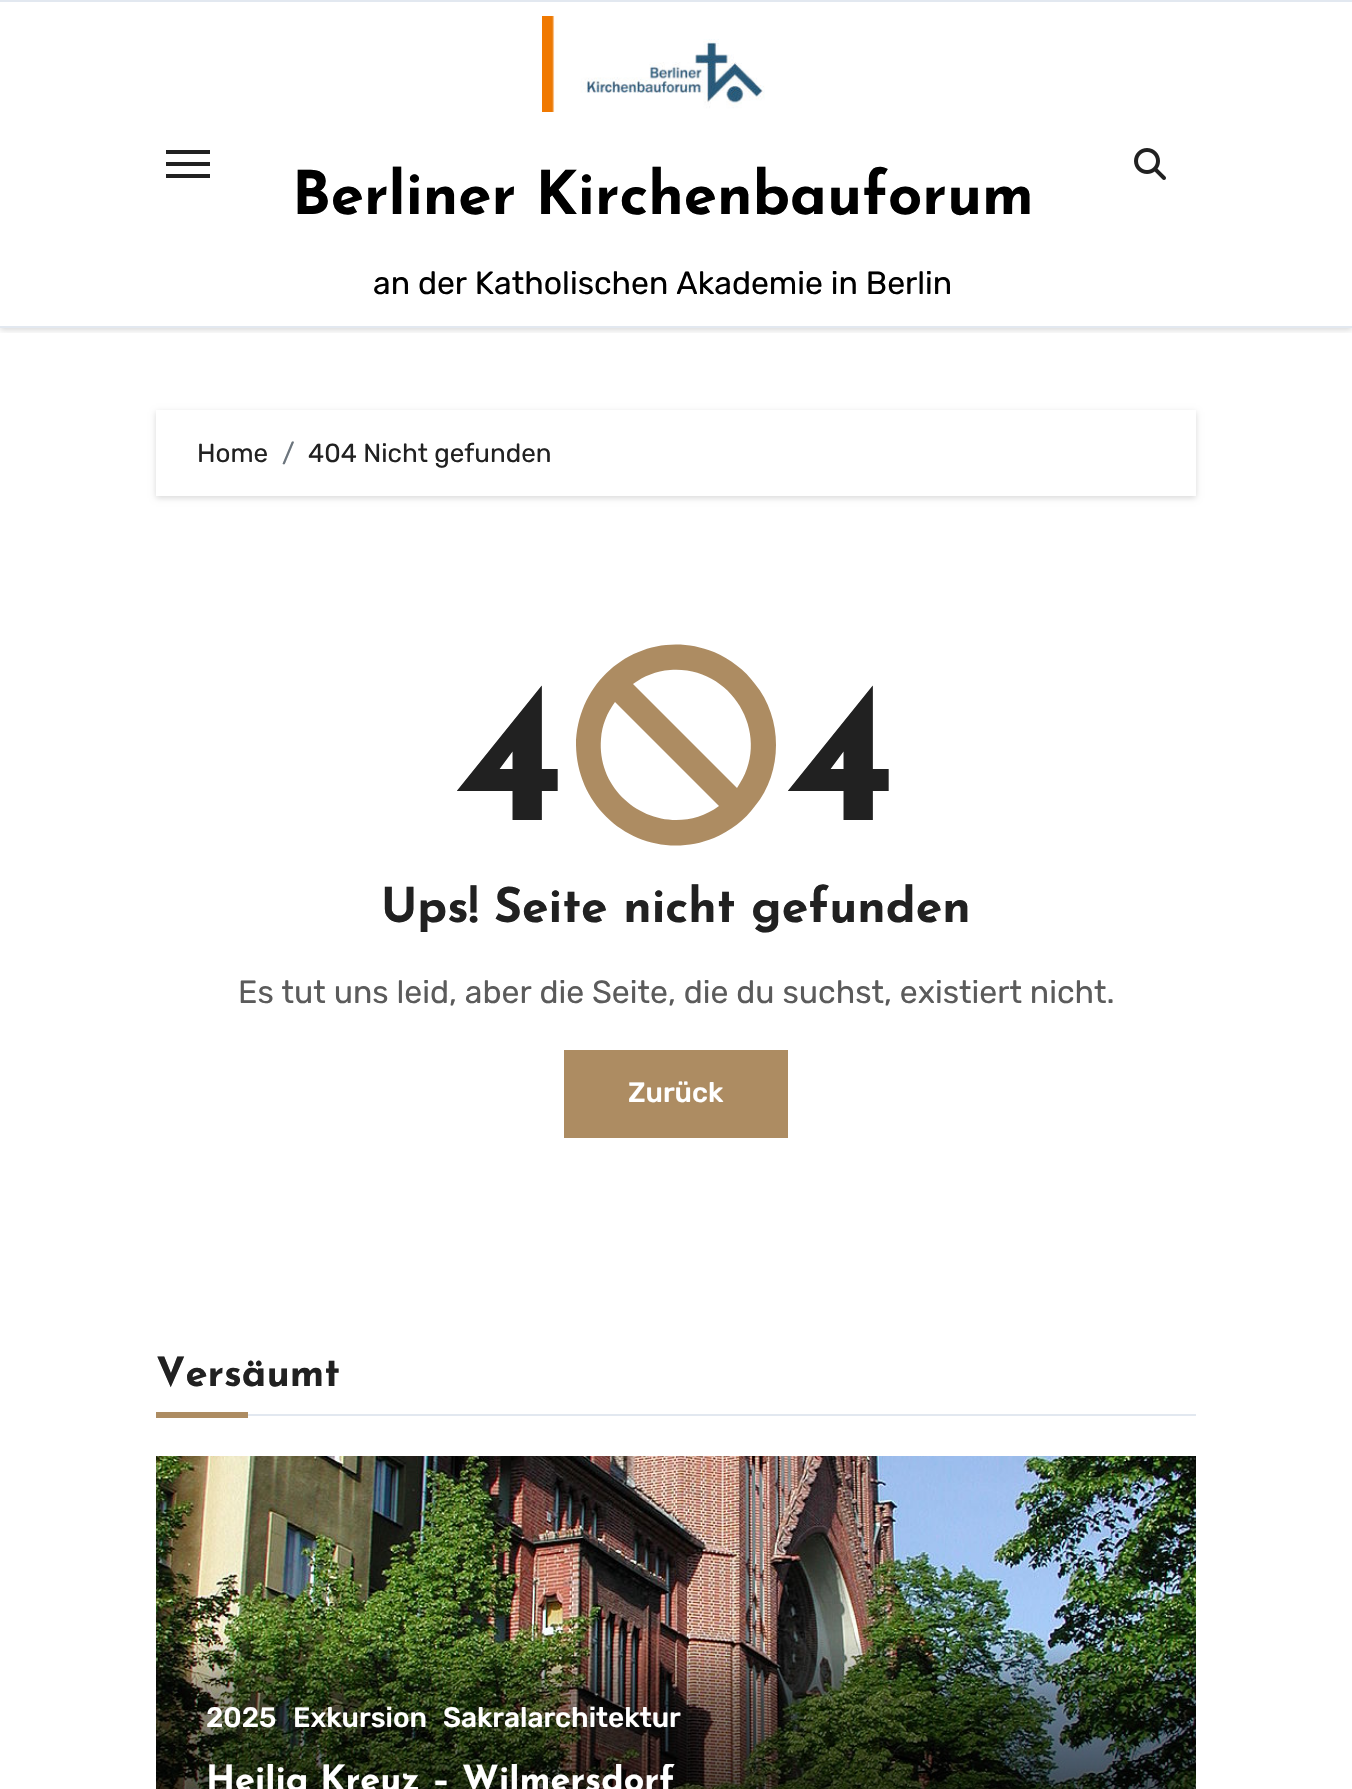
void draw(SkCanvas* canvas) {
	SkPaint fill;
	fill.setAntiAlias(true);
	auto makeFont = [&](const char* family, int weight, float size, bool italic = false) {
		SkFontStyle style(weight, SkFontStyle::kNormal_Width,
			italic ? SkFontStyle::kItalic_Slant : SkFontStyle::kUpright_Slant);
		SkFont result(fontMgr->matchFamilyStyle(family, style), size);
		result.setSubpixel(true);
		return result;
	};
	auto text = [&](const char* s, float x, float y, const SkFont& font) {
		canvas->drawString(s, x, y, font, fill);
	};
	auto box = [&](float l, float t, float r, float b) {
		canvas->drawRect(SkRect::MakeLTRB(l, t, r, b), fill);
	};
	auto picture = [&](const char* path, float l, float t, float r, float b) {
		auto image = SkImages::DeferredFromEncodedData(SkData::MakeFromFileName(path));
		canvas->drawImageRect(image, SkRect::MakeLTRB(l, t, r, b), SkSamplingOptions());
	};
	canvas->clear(0xFFFFFFFF);
	canvas->save();
	canvas->clipRect(SkRect::MakeLTRB(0, 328, 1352, 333));
	fill.setColor(0x26000000);
	fill.setMaskFilter(SkMaskFilter::MakeBlur(kNormal_SkBlurStyle, 3));
	canvas->drawRect(SkRect::MakeLTRB(0, 2, 1352, 330), fill);
	fill.setMaskFilter(nullptr);
	canvas->restore();
	fill.setColor(0xFFE2E8F0);
	box(0, 0, 1352, 2);
	box(0, 326, 1352, 328);
	fill.setColor(0xFF212121);
	box(166, 150, 210, 154);
	box(166, 162, 210, 166);
	box(166, 174, 210, 178);
	picture("image0.png", 542, 16, 765, 112);
	picture("image1.png", 1134, 148, 1166, 180);
	canvas->save();
	canvas->clipPath(SkPathBuilder(SkPathFillType::kEvenOdd).moveTo(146, 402).lineTo(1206, 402).lineTo(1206, 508).lineTo(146, 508).close().moveTo(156, 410).lineTo(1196, 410).lineTo(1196, 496).lineTo(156, 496).close().detach(), true);
	fill.setColor(0x26000000);
	fill.setMaskFilter(SkMaskFilter::MakeBlur(kNormal_SkBlurStyle, 3));
	canvas->drawRect(SkRect::MakeLTRB(156, 412, 1196, 498), fill);
	fill.setMaskFilter(nullptr);
	canvas->restore();
	fill.setColor(0xFFAD8C62);
	canvas->drawPath(SkPathBuilder().moveTo(719, 806).lineTo(615, 702).cubicTo(607, 713, 602, 725, 601, 739).cubicTo(596, 802, 668, 843, 719, 806).close().moveTo(737, 788).cubicTo(774, 737, 733, 665, 670, 670).cubicTo(656, 671, 644, 676, 633, 684).close().moveTo(576, 745).cubicTo(577, 674, 647, 625, 714, 652).cubicTo(730, 659, 745, 670, 755, 684).cubicTo(769, 701, 776, 723, 776, 745).cubicTo(776, 767, 769, 789, 755, 806).cubicTo(745, 820, 730, 831, 714, 838).cubicTo(647, 865, 577, 816, 576, 745).close().detach(), fill);
	box(564, 1050, 788, 1138);
	fill.setColor(0xFFE2E8F0);
	box(248, 1414, 1196, 1416);
	fill.setColor(0xFFAD8C62);
	box(156, 1412, 248, 1418);
	picture("image2.png", 156, 1456, 1196, 1789);
	auto font1 = makeFont("Josefin Sans", 700, 60);
	fill.setColor(0xFF000000);
	text("Berliner Kirchenbauforum", 292, 214, font1);
	auto font2 = makeFont("Rubik", 300, 32);
	text("an der Katholischen Akademie in Berlin", 373, 294, font2);
	auto font3 = makeFont("Rubik", 300, 26);
	fill.setColor(0xFF212121);
	text("Home", 197, 462, font3);
	fill.setColor(0xFF6C757D);
	text("/", 282, 462, font3);
	fill.setColor(0xFF212121);
	text("404 Nicht gefunden", 308, 462, font3);
	auto font4 = makeFont("Josefin Sans", 700, 200);
	text("4", 455, 820, font4);
	text("4", 786, 820, font4);
	auto font5 = makeFont("Josefin Sans", 700, 48);
	text("Ups! Seite nicht gefunden", 381, 922, font5);
	fill.setColor(0xFF5B5B5B);
	text("Es tut uns leid, aber die Seite, die du suchst, existiert nicht.", 238, 1003, font2);
	auto font6 = makeFont("Rubik", 500, 28);
	fill.setColor(0xFFFFFFFF);
	text("Zurück", 628, 1102, font6);
	auto font7 = makeFont("Josefin Sans", 700, 40);
	fill.setColor(0xFF212121);
	text("Versäumt", 156, 1386, font7);
	fill.setColor(0xFFFFFFFF);
	text("2025", 206, 1727, font6);
	text("Exkursion", 293, 1727, font6);
	text("Sakralarchitektur", 443, 1727, font6);
	canvas->save();
	canvas->clipRect(SkRect::MakeLTRB(206, 1764, 1146, 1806));
	auto font8 = makeFont("Josefin Sans", 700, 36);
	text("Heilig Kreuz – Wilmersdorf", 206, 1791, font8);
	canvas->restore();
}
